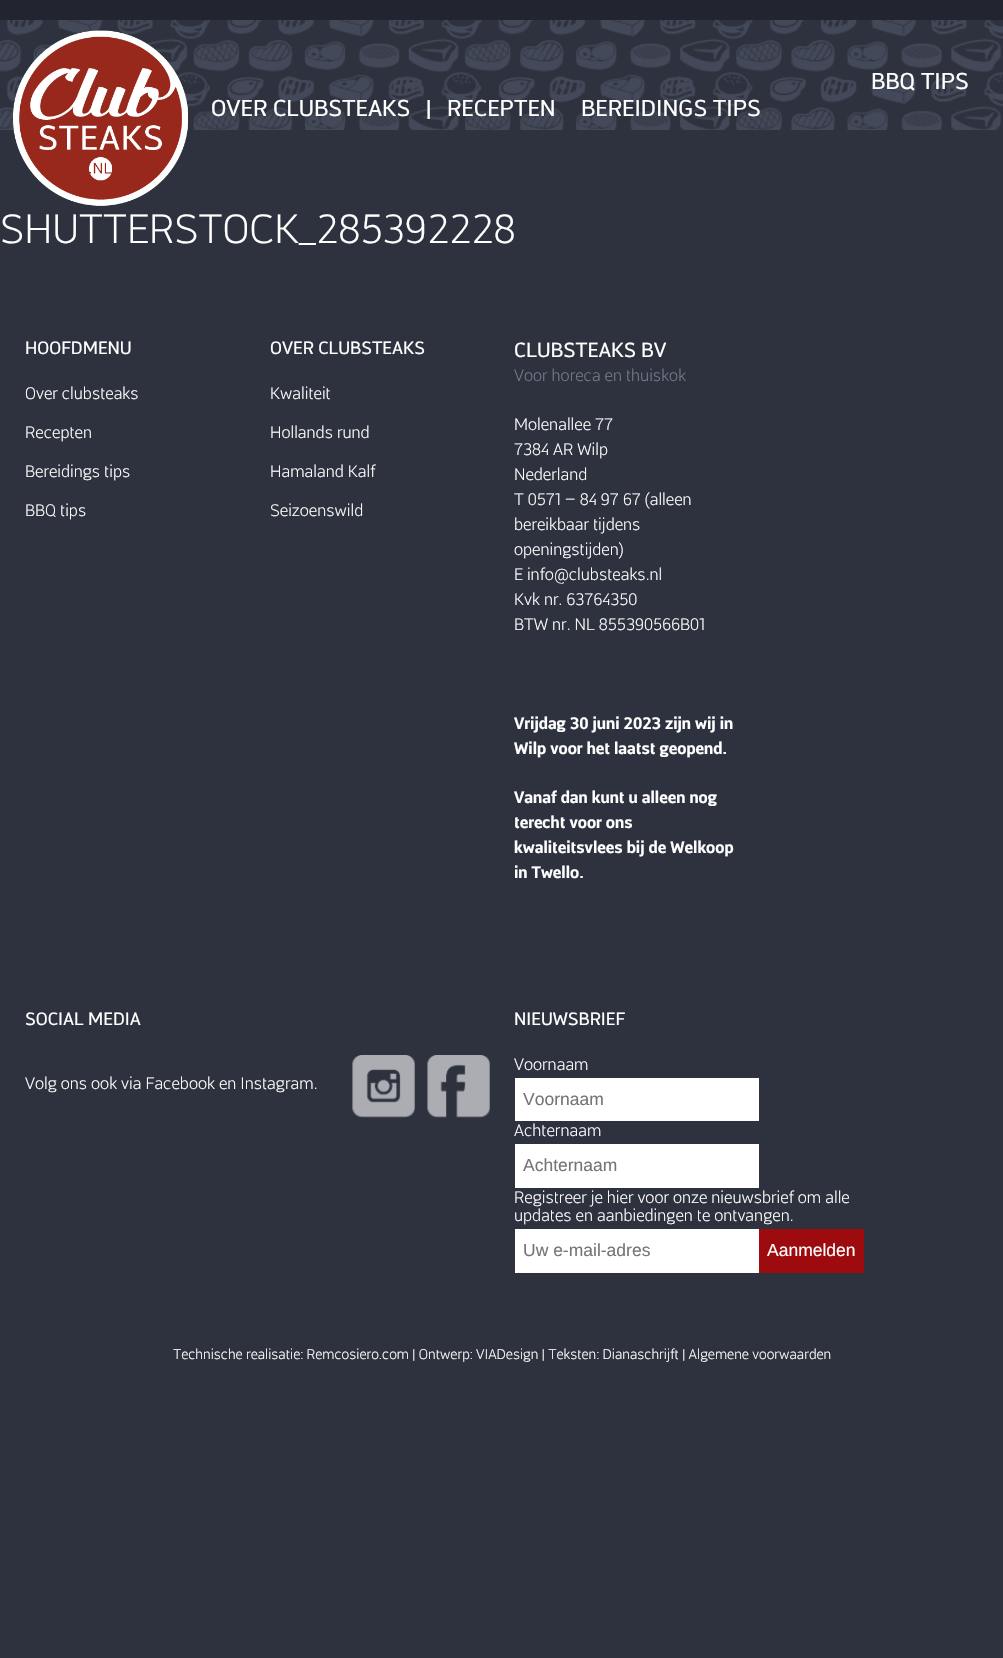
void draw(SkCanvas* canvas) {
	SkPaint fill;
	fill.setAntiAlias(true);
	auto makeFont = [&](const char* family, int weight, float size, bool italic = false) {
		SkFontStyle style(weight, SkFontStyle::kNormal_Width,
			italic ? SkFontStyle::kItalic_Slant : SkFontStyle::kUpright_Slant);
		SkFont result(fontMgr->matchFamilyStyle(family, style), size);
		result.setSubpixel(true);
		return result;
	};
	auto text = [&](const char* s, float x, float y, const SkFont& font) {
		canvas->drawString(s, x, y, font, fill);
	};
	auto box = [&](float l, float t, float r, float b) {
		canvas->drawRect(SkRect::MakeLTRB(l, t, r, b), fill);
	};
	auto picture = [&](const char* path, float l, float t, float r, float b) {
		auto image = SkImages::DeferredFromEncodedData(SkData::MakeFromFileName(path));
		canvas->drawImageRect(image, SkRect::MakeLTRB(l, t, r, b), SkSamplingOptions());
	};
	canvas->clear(0xFF2D323E);
	fill.setColor(0xFF222530);
	box(0, 0, 1003, 20);
	picture("image0.png", 0, 20, 1003, 130);
	picture("image1.png", 13, 30, 188, 206);
	picture("image2.png", 352, 1055, 415, 1118);
	picture("image3.png", 427, 1055, 490, 1118);
	fill.setColor(0xFFFFFFFF);
	box(515, 1078, 759, 1121);
	box(515, 1144, 759, 1188);
	box(515, 1229, 759, 1273);
	fill.setColor(0xFF9E0B0F);
	box(759, 1229, 864, 1273);
	auto font1 = makeFont("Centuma", 400, 22.5f);
	fill.setColor(0xFFFFFFFF);
	text("BBQ TIPS", 871, 89, font1);
	text("OVER CLUBSTEAKS", 211, 116, font1);
	text("|", 426, 116, font1);
	text("RECEPTEN", 447, 116, font1);
	text("BEREIDINGS TIPS", 581, 116, font1);
	auto font2 = makeFont("Centuma", 300, 40);
	text("SHUTTERSTOCK_285392228", 0, 243, font2);
	auto font3 = makeFont("Centuma", 400, 17.5f);
	text("HOOFDMENU", 25, 354, font3);
	auto font4 = makeFont("Centuma", 300, 16.25f);
	text("Over clubsteaks", 25, 399, font4);
	text("Recepten", 25, 438, font4);
	text("Bereidings tips", 25, 477, font4);
	text("BBQ tips", 25, 516, font4);
	text("OVER CLUBSTEAKS", 270, 354, font3);
	text("Kwaliteit", 270, 399, font4);
	text("Hollands rund", 270, 438, font4);
	text("Hamaland Kalf", 270, 477, font4);
	text("Seizoenswild", 270, 516, font4);
	auto font5 = makeFont("Centuma", 400, 20);
	text("CLUBSTEAKS BV", 514, 357, font5);
	fill.setColor(0xFF767C8C);
	text("Voor horeca en thuiskok", 514, 381, font4);
	fill.setColor(0xFFFFFFFF);
	text("Molenallee 77", 514, 430, font4);
	text("7384 AR Wilp", 514, 455, font4);
	text("Nederland", 514, 480, font4);
	text("T 0571 – 84 97 67 (alleen", 514, 505, font4);
	text("bereikbaar tijdens", 514, 530, font4);
	text("openingstijden)", 514, 555, font4);
	text("E info@clubsteaks.nl", 514, 580, font4);
	text("Kvk nr. 63764350", 514, 605, font4);
	text("BTW nr. NL 855390566B01", 514, 630, font4);
	auto font6 = makeFont("Centuma", 700, 16.25f);
	text("Vrijdag 30 juni 2023 zijn wij in", 514, 729, font6);
	text("Wilp voor het laatst geopend.", 514, 754, font6);
	text("Vanaf dan kunt u alleen nog", 514, 803, font6);
	text("terecht voor ons", 514, 828, font6);
	text("kwaliteitsvlees bij de Welkoop", 514, 853, font6);
	text("in Twello.", 514, 878, font6);
	text("SOCIAL MEDIA", 25, 1025, font3);
	text("Volg ons ook via Facebook en Instagram.", 25, 1089, font4);
	text("NIEUWSBRIEF", 514, 1025, font3);
	text("Voornaam", 514, 1070, font4);
	auto font7 = makeFont("Liberation Sans", 400, 17.5f);
	fill.setColor(0xFF757575);
	text("Voornaam", 523, 1105, font7);
	fill.setColor(0xFFFFFFFF);
	text("Achternaam", 514, 1136, font4);
	fill.setColor(0xFF757575);
	text("Achternaam", 523, 1171, font7);
	fill.setColor(0xFFFFFFFF);
	text("Registreer je hier voor onze nieuwsbrief om alle", 514, 1203, font4);
	text("updates en aanbiedingen te ontvangen.", 514, 1221, font4);
	fill.setColor(0xFF757575);
	text("Uw e-mail-adres", 523, 1256, font7);
	fill.setColor(0xFFFFFFFF);
	text("Aanmelden", 767, 1256, font7);
	auto font8 = makeFont("Centuma", 300, 13.75f);
	text("Technische realisatie: Remcosiero.com | Ontwerp: VIADesign | Teksten: Dianaschrijft | Algemene voorwaarden", 173, 1359, font8);
}
